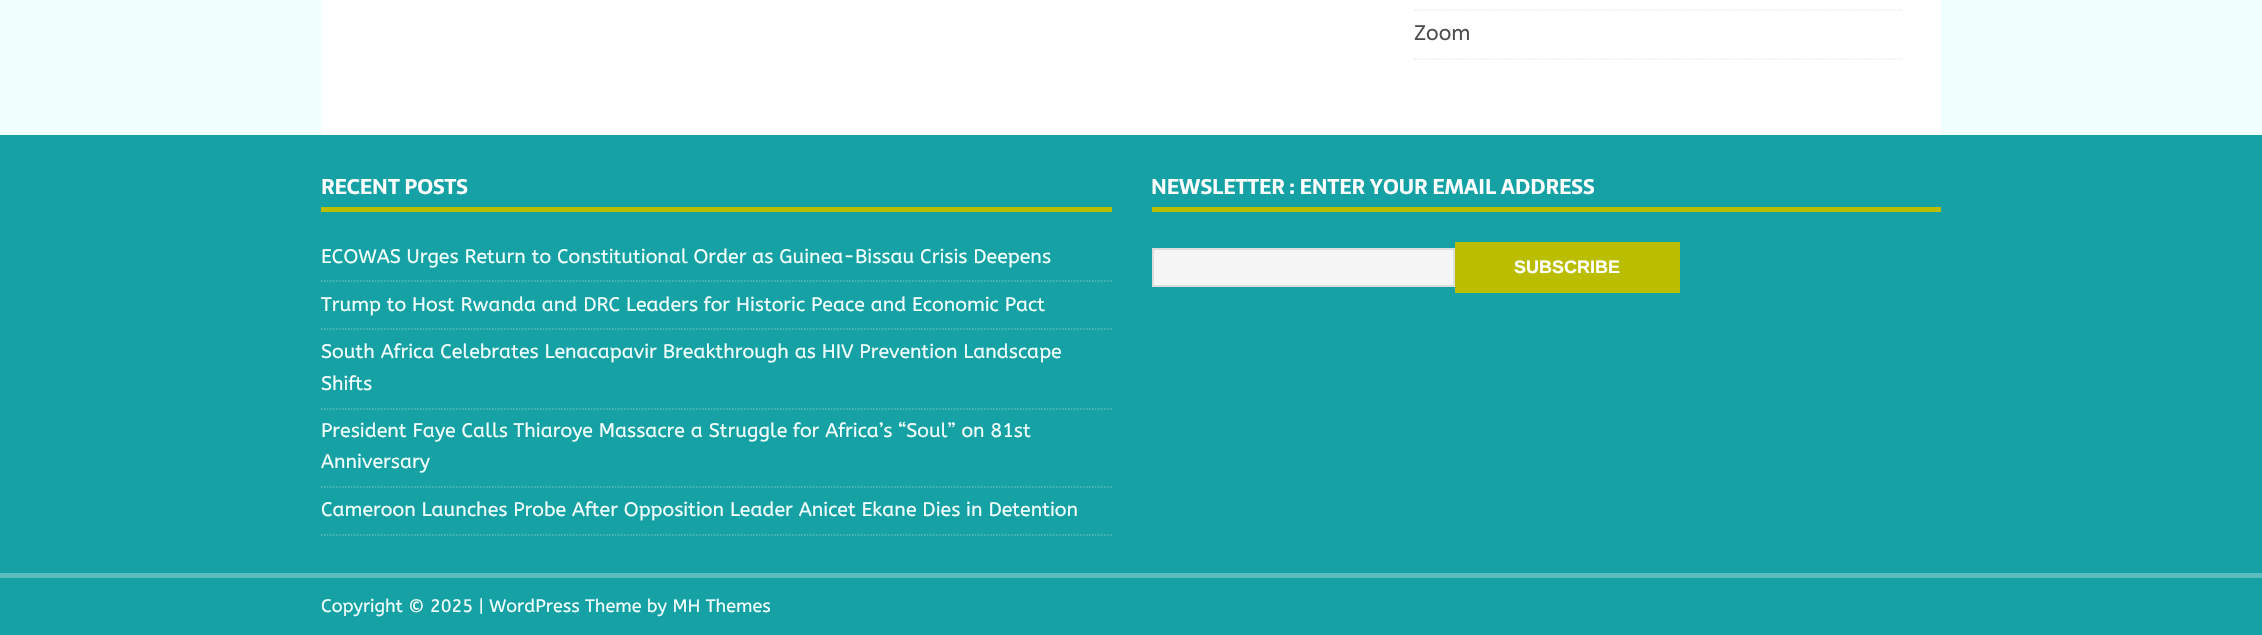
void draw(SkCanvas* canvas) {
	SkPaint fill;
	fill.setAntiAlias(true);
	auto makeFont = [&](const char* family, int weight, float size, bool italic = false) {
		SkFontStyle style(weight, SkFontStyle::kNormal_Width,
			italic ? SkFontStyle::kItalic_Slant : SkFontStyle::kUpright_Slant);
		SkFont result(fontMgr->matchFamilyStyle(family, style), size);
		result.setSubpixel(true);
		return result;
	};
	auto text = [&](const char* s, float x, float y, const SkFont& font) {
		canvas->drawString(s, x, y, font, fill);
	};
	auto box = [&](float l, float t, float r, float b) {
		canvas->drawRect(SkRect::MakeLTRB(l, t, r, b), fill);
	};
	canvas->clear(0xFFF2FFFF);
	fill.setColor(0xFFFFFFFF);
	box(321, 0, 1941, 135);
	fill.setStyle(SkPaint::kStroke_Style);
	fill.setStrokeWidth(1.5f);
	fill.setColor(0xFFEBEBEB);
	fill.setPathEffect(SkDashPathEffect::Make({{1.5f, 1.5f}}, 0));
	canvas->drawPath(SkPathBuilder().moveTo(1414.5f, 10).lineTo(1903.5f, 10).detach(), fill);
	fill.setPathEffect(nullptr);
	fill.setPathEffect(SkDashPathEffect::Make({{1.5f, 1.5f}}, 0));
	canvas->drawPath(SkPathBuilder().moveTo(1414.5f, 59).lineTo(1903.5f, 59).detach(), fill);
	fill.setPathEffect(nullptr);
	fill.setStyle(SkPaint::kFill_Style);
	fill.setColor(0xFF16A1A4);
	box(0, 135, 2262, 573);
	fill.setColor(0xFFBBBD00);
	box(321, 207, 1112, 212);
	fill.setStyle(SkPaint::kStroke_Style);
	fill.setColor(0xFF5CBDBF);
	fill.setPathEffect(SkDashPathEffect::Make({{1.5f, 1.5f}}, 0));
	canvas->drawPath(SkPathBuilder().moveTo(321, 281).lineTo(1111.5f, 281).detach(), fill);
	fill.setPathEffect(nullptr);
	fill.setPathEffect(SkDashPathEffect::Make({{1.5f, 1.5f}}, 0));
	canvas->drawPath(SkPathBuilder().moveTo(321, 329).lineTo(1111.5f, 329).detach(), fill);
	fill.setPathEffect(nullptr);
	fill.setPathEffect(SkDashPathEffect::Make({{1.5f, 1.5f}}, 0));
	canvas->drawPath(SkPathBuilder().moveTo(321, 409).lineTo(1111.5f, 409).detach(), fill);
	fill.setPathEffect(nullptr);
	fill.setPathEffect(SkDashPathEffect::Make({{1.5f, 1.5f}}, 0));
	canvas->drawPath(SkPathBuilder().moveTo(321, 487).lineTo(1111.5f, 487).detach(), fill);
	fill.setPathEffect(nullptr);
	fill.setPathEffect(SkDashPathEffect::Make({{1.5f, 1.5f}}, 0));
	canvas->drawPath(SkPathBuilder().moveTo(321, 535).lineTo(1111.5f, 535).detach(), fill);
	fill.setPathEffect(nullptr);
	fill.setStyle(SkPaint::kFill_Style);
	fill.setColor(0xFFBBBD00);
	box(1152, 207, 1941, 212);
	fill.setColor(0xFFF5F5F5);
	canvas->drawRect(SkRect::MakeLTRB(1153, 249, 1454, 286), fill);
	fill.setStyle(SkPaint::kStroke_Style);
	fill.setStrokeWidth(2);
	fill.setColor(0xFFDDDDDD);
	canvas->drawRect(SkRect::MakeLTRB(1153, 249, 1454, 286), fill);
	fill.setStyle(SkPaint::kFill_Style);
	fill.setColor(0xFFBBBD00);
	box(1455, 242, 1680, 293);
	fill.setColor(0xFF16A1A4);
	box(0, 578, 2262, 635);
	fill.setColor(0xFF5CBDBF);
	box(0, 573, 2262, 578);
	auto font1 = makeFont("ABeeZee", 400, 21);
	fill.setColor(0xFF4F4F4F);
	text("Zoom", 1414, 40, font1);
	auto font2 = makeFont("Sarala", 700, 21);
	fill.setColor(0xFFFFFFFF);
	text("RECENT POSTS", 321, 194, font2);
	auto font3 = makeFont("ABeeZee", 400, 19.5f);
	fill.setColor(0xFFF2FFFF);
	text("ECOWAS Urges Return to Constitutional Order as Guinea-Bissau Crisis Deepens", 321, 263, font3);
	text("Trump to Host Rwanda and DRC Leaders for Historic Peace and Economic Pact", 321, 311, font3);
	text("South Africa Celebrates Lenacapavir Breakthrough as HIV Prevention Landscape", 321, 358, font3);
	text("Shifts", 321, 390, font3);
	text("President Faye Calls Thiaroye Massacre a Struggle for Africa’s “Soul” on 81st", 321, 437, font3);
	text("Anniversary", 321, 468, font3);
	text("Cameroon Launches Probe After Opposition Leader Anicet Ekane Dies in Detention", 321, 516, font3);
	fill.setColor(0xFFFFFFFF);
	text("NEWSLETTER : ENTER YOUR EMAIL ADDRESS", 1151, 194, font2);
	auto font4 = makeFont("Liberation Sans", 700, 18);
	text("SUBSCRIBE", 1514, 273, font4);
	auto font5 = makeFont("ABeeZee", 400, 18);
	fill.setColor(0xFFF2FFFF);
	text("Copyright © 2025 | WordPress Theme by MH Themes", 321, 612, font5);
}
